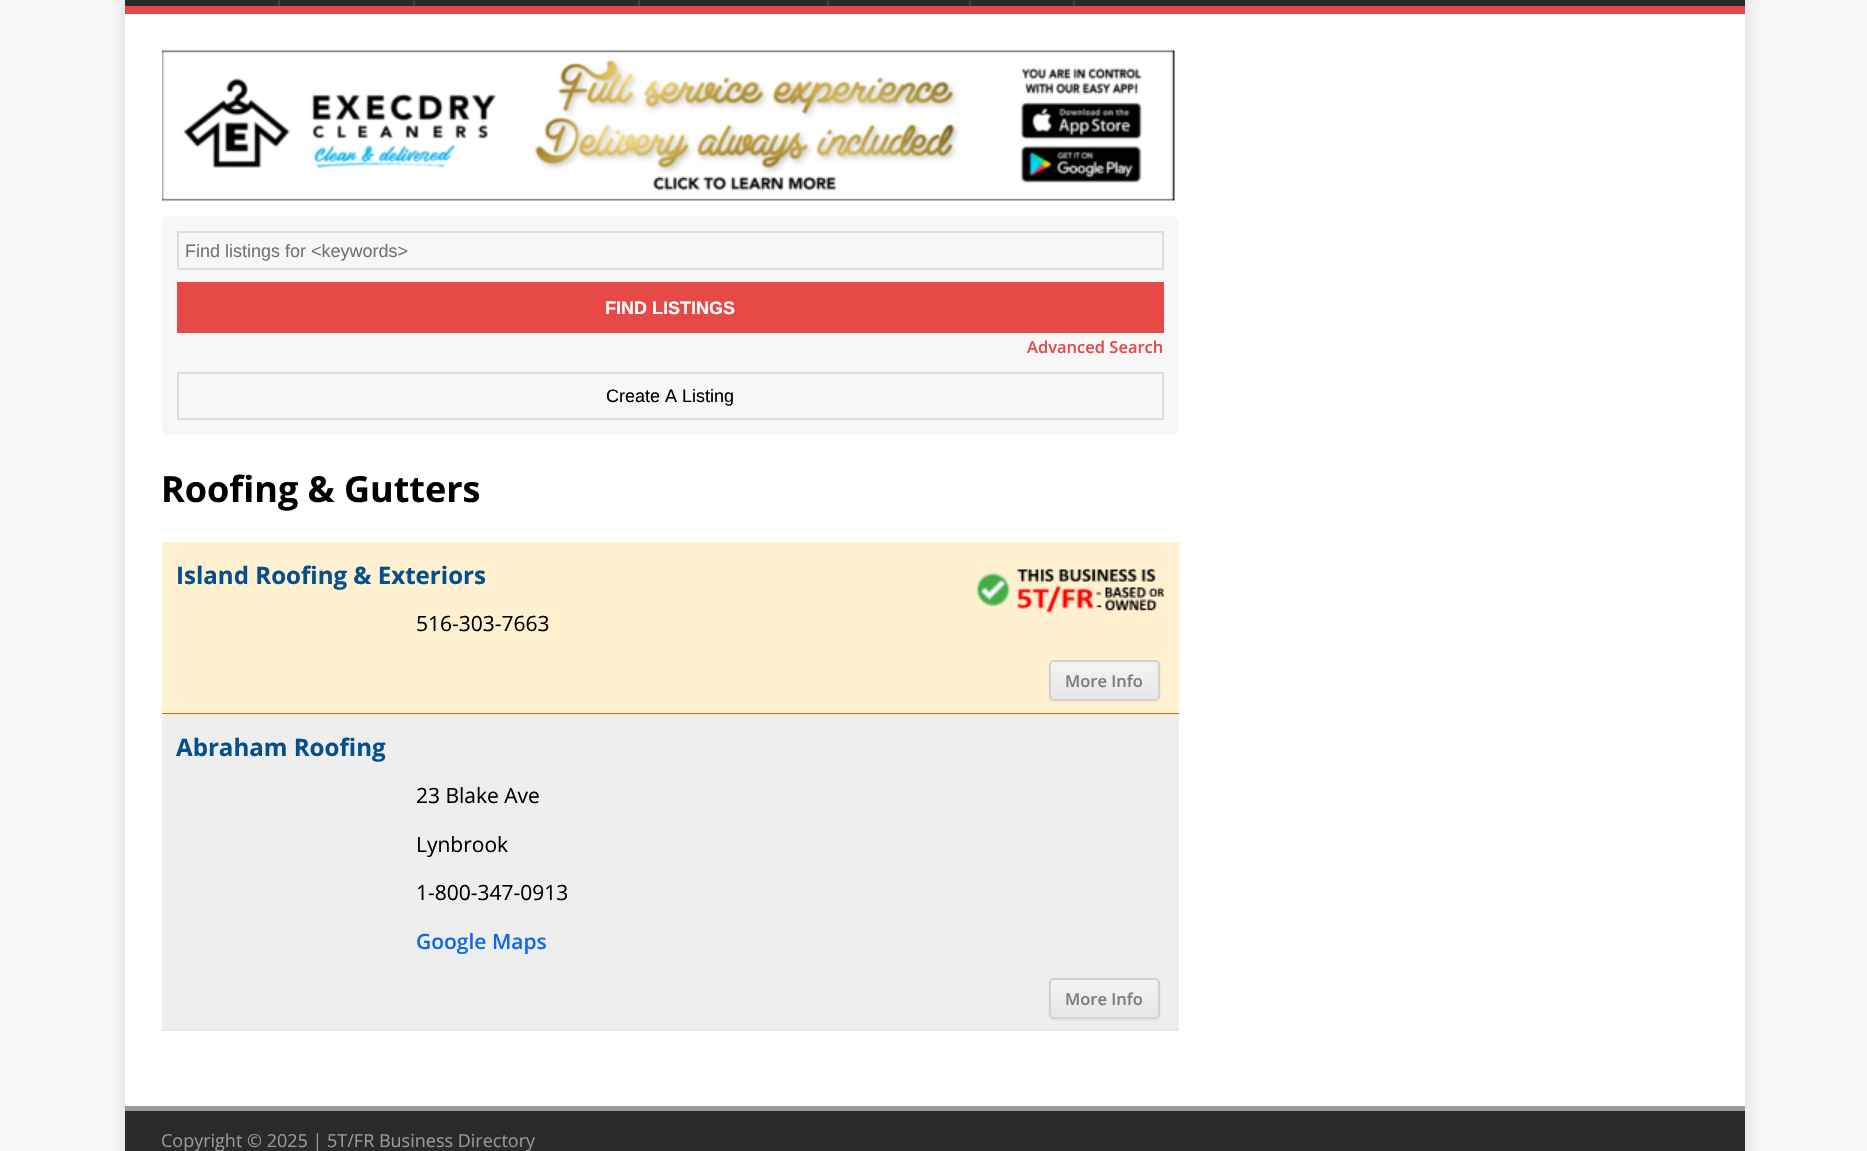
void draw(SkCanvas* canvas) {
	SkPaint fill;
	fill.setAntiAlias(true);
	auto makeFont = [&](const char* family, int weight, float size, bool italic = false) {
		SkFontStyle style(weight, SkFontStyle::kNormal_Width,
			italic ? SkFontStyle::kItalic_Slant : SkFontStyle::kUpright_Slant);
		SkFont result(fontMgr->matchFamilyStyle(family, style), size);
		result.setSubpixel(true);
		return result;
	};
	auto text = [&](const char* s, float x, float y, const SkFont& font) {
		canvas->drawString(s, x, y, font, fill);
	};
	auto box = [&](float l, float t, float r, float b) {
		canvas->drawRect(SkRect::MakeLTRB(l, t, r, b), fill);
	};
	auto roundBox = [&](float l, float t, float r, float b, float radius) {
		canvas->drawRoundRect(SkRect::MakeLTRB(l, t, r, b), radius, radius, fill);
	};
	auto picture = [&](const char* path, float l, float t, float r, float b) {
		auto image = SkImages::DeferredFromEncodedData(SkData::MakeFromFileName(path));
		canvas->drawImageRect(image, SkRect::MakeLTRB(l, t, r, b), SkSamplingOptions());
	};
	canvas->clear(0xFFF7F7F7);
	fill.setColor(0x2B323232);
	fill.setMaskFilter(SkMaskFilter::MakeBlur(kNormal_SkBlurStyle, 7.5f));
	canvas->drawRect(SkRect::MakeLTRB(125, -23, 1745, 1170), fill);
	fill.setMaskFilter(nullptr);
	fill.setColor(0xFF2A2A2A);
	box(125, 0, 1745, 6);
	fill.setColor(0xFFE64946);
	box(125, 6, 1745, 14);
	fill.setColor(0xFF3F3F3F);
	box(278, 0, 280, 6);
	box(413, 0, 415, 6);
	box(638, 0, 640, 6);
	box(827, 0, 829, 6);
	box(969, 0, 971, 6);
	box(1073, 0, 1075, 6);
	fill.setColor(0xFFFFFFFF);
	box(125, 14, 1745, 1106);
	picture("image0.png", 162, 50, 1175, 201);
	fill.setColor(0xFFF7F7F7);
	roundBox(162, 216, 1179, 435, 6);
	fill.setStyle(SkPaint::kStroke_Style);
	fill.setStrokeWidth(2);
	fill.setColor(0xFFDDDDDD);
	canvas->drawRect(SkRect::MakeLTRB(178, 232, 1163, 269), fill);
	fill.setStyle(SkPaint::kFill_Style);
	fill.setColor(0xFFE64946);
	box(177, 282, 1164, 333);
	fill.setStyle(SkPaint::kStroke_Style);
	fill.setColor(0xFFDDDDDD);
	canvas->drawRect(SkRect::MakeLTRB(178, 373, 1163, 419), fill);
	fill.setStyle(SkPaint::kFill_Style);
	fill.setColor(0xFFFFF0CF);
	box(162, 542, 1179, 713);
	fill.setColor(0xFFB37800);
	box(162, 713, 1179, 714);
	picture("image1.png", 976, 568, 1164, 613);
	fill.setColor(0x1A404040);
	fill.setMaskFilter(SkMaskFilter::MakeBlur(kNormal_SkBlurStyle, 1.5f));
	canvas->drawRoundRect(SkRect::MakeLTRB(1049, 662, 1160, 702), 5, 5, fill);
	fill.setMaskFilter(nullptr);
	canvas->save();
	canvas->clipPath(SkPathBuilder().moveTo(1054, 660).lineTo(1155, 660).cubicTo(1158, 660, 1160, 662, 1160, 665).lineTo(1160, 696).cubicTo(1160, 699, 1158, 701, 1155, 701).lineTo(1054, 701).cubicTo(1051, 701, 1049, 699, 1049, 696).lineTo(1049, 665).cubicTo(1049, 662, 1051, 660, 1054, 660).close().detach(), true);
	{
		const SkColor colors[] = {0xFFF4F4F4, 0xFFE6E6E6};
		const float stops[] = {0, 1};
		const SkPoint ends[] = {{1104, 662}, {1104, 699}};
		fill.setShader(SkGradientShader::MakeLinear(ends, colors, stops, 2, SkTileMode::kClamp));
		fill.setAlpha(255);
	}
	box(1049, 662, 1160, 699);
	canvas->restore();
	fill.setStyle(SkPaint::kStroke_Style);
	fill.setShader(nullptr);
	fill.setColor(0xFFD2D2D2);
	canvas->drawRoundRect(SkRect::MakeLTRB(1050, 661, 1159, 700), 4, 4, fill);
	fill.setStyle(SkPaint::kFill_Style);
	fill.setColor(0xFFEEEEEE);
	box(162, 714, 1179, 1031);
	fill.setStyle(SkPaint::kStroke_Style);
	fill.setStrokeWidth(1.5f);
	fill.setColor(0xFFDDDDDD);
	fill.setPathEffect(SkDashPathEffect::Make({{1.5f, 1.5f}}, 0));
	canvas->drawPath(SkPathBuilder().moveTo(162, 1030).lineTo(1179, 1030).detach(), fill);
	fill.setPathEffect(nullptr);
	fill.setStyle(SkPaint::kFill_Style);
	fill.setColor(0x1A404040);
	fill.setMaskFilter(SkMaskFilter::MakeBlur(kNormal_SkBlurStyle, 1.5f));
	canvas->drawRoundRect(SkRect::MakeLTRB(1049, 980, 1160, 1020), 5, 5, fill);
	fill.setMaskFilter(nullptr);
	canvas->save();
	canvas->clipPath(SkPathBuilder().moveTo(1054, 978).lineTo(1155, 978).cubicTo(1158, 978, 1160, 980, 1160, 983).lineTo(1160, 1014).cubicTo(1160, 1017, 1158, 1019, 1155, 1019).lineTo(1054, 1019).cubicTo(1051, 1019, 1049, 1017, 1049, 1014).lineTo(1049, 983).cubicTo(1049, 980, 1051, 978, 1054, 978).close().detach(), true);
	{
		const SkColor colors[] = {0xFFF4F4F4, 0xFFE6E6E6};
		const float stops[] = {0, 1};
		const SkPoint ends[] = {{1104, 980}, {1104, 1017}};
		fill.setShader(SkGradientShader::MakeLinear(ends, colors, stops, 2, SkTileMode::kClamp));
		fill.setAlpha(255);
	}
	box(1049, 980, 1160, 1017);
	canvas->restore();
	fill.setStyle(SkPaint::kStroke_Style);
	fill.setStrokeWidth(2);
	fill.setShader(nullptr);
	fill.setColor(0xFFD2D2D2);
	canvas->drawRoundRect(SkRect::MakeLTRB(1050, 979, 1159, 1018), 4, 4, fill);
	fill.setStyle(SkPaint::kFill_Style);
	fill.setColor(0xFF2A2A2A);
	box(125, 1111, 1745, 1151);
	fill.setColor(0xFF999999);
	box(125, 1106, 1745, 1111);
	auto font1 = makeFont("Liberation Sans", 400, 18);
	fill.setColor(0xFF757575);
	text("Find listings for <keywords>", 185, 257, font1);
	auto font2 = makeFont("Liberation Sans", 700, 18);
	fill.setColor(0xFFFFFFFF);
	text("FIND LISTINGS", 605, 314, font2);
	auto font3 = makeFont("Open Sans", 600, 16.5f);
	fill.setColor(0xFFE64946);
	text("Advanced Search", 1027, 353, font3);
	fill.setColor(0xFF000000);
	text("Create A Listing", 606, 402, font1);
	auto font4 = makeFont("Open Sans", 700, 36);
	text("Roofing & Gutters", 161, 502, font4);
	auto font5 = makeFont("Open Sans", 700, 24.1f);
	fill.setColor(0xFF044F8D);
	text("Island Roofing & Exteriors", 176, 584, font5);
	auto font6 = makeFont("Open Sans", 400, 21);
	fill.setColor(0xFF000000);
	text("516-303-7663", 416, 631, font6);
	fill.setColor(0xFF7C7C7C);
	text("More Info", 1065, 687, font3);
	fill.setColor(0xFF044F8D);
	text("Abraham Roofing", 176, 756, font5);
	fill.setColor(0xFF000000);
	text("23 Blake Ave", 416, 803, font6);
	text("Lynbrook", 416, 852, font6);
	text("1-800-347-0913", 416, 900, font6);
	auto font7 = makeFont("Open Sans", 600, 21);
	fill.setColor(0xFF0F66F4);
	text("Google Maps", 416, 949, font7);
	fill.setColor(0xFF7C7C7C);
	text("More Info", 1065, 1005, font3);
	auto font8 = makeFont("Open Sans", 400, 18);
	fill.setColor(0xFF999999);
	text("Copyright © 2025 | 5T/FR Business Directory", 161, 1147, font8);
}
